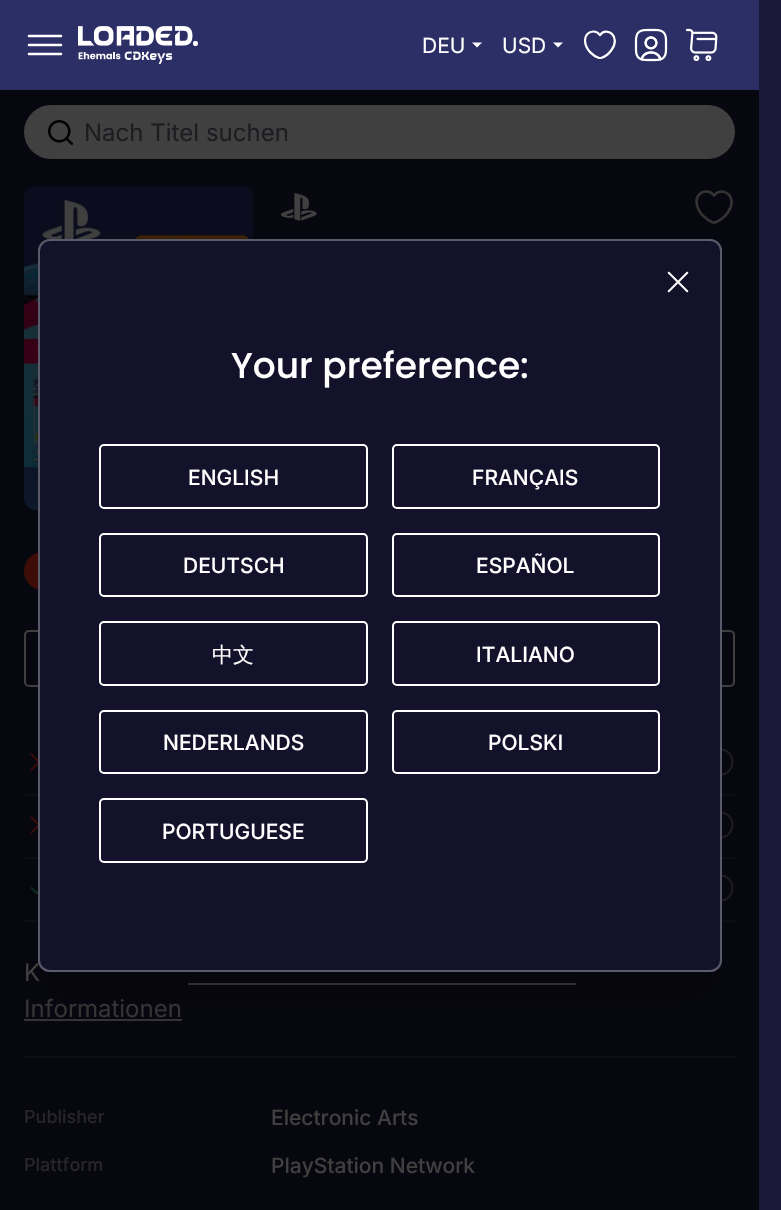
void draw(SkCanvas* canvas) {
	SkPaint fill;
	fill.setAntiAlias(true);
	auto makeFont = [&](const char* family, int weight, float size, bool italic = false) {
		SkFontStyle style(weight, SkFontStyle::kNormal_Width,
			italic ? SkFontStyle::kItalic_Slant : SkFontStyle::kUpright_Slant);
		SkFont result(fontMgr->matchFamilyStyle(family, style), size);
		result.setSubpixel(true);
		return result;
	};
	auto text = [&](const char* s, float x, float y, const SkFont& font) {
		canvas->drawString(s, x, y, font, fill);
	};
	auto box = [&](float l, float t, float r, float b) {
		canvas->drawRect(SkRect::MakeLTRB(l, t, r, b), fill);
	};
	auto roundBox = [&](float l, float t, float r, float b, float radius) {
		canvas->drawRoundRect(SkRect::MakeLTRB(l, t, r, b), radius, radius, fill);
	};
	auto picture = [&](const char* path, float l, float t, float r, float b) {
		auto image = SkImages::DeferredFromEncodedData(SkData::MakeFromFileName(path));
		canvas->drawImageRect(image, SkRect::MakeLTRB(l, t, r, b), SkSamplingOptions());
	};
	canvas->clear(0xFF1B193B);
	fill.setColor(0xFF0E0D1E);
	box(0, 90, 759, 1210);
	fill.setColor(0xFF2C2F66);
	box(0, 0, 759, 90);
	fill.setStyle(SkPaint::kStroke_Style);
	fill.setStrokeWidth(2.6f);
	fill.setStrokeCap(SkPaint::kRound_Cap);
	fill.setColor(0xFFFFFFFF);
	canvas->drawPath(SkPathBuilder().moveTo(29, 36).lineTo(61, 36).moveTo(29, 45).lineTo(61, 45).moveTo(29, 54).lineTo(61, 54).detach(), fill);
	picture("image0.png", 78, 26, 198, 64);
	fill.setStyle(SkPaint::kFill_Style);
	canvas->drawPath(SkPathBuilder().moveTo(472, 42.5f).lineTo(477, 47.5f).lineTo(482, 42.5f).close().detach(), fill);
	canvas->drawPath(SkPathBuilder().moveTo(553, 42.5f).lineTo(558, 47.5f).lineTo(563, 42.5f).close().detach(), fill);
	fill.setStyle(SkPaint::kStroke_Style);
	fill.setStrokeWidth(2.2f);
	fill.setStrokeJoin(SkPaint::kRound_Join);
	canvas->drawPath(SkPathBuilder().moveTo(601, 58).lineTo(599, 58).cubicTo(594.5f, 56.5f, 585, 50.5f, 585, 40).cubicTo(585, 35.5f, 588.5f, 31.5f, 593.5f, 31.5f).cubicTo(596, 31.5f, 598.5f, 33, 600, 35).cubicTo(606.5f, 26, 621.5f, 36, 611.5f, 50).cubicTo(609, 53.5f, 605, 57, 601, 58).close().detach(), fill);
	picture("image1.png", 634, 28, 668, 62);
	picture("image2.png", 685, 28, 718, 62);
	fill.setStyle(SkPaint::kFill_Style);
	fill.setColor(0xFF808080);
	roundBox(24, 105, 735, 159, 27);
	picture("image3.png", 48, 120, 73, 145);
	picture("image4.png", 24, 186, 254, 510);
	picture("image5.png", 281, 193, 317, 221);
	fill.setStyle(SkPaint::kStroke_Style);
	fill.setStrokeWidth(2.6f);
	fill.setColor(0xFF686868);
	canvas->drawPath(SkPathBuilder().moveTo(715, 222.5f).cubicTo(714.5f, 222.5f, 713.5f, 222.5f, 713, 222.5f).cubicTo(708, 220.5f, 696.5f, 213.5f, 696.5f, 201).cubicTo(696.5f, 196, 701, 191.5f, 706, 191.5f).cubicTo(709.5f, 191.5f, 712, 193, 714, 195.5f).cubicTo(722, 185, 739.5f, 196.5f, 727.5f, 213).cubicTo(724.5f, 217, 720, 220.5f, 715, 222.5f).close().detach(), fill);
	fill.setStyle(SkPaint::kFill_Style);
	fill.setColor(0xFF80190D);
	roundBox(24, 552, 177, 590, 19);
	fill.setStyle(SkPaint::kStroke_Style);
	fill.setStrokeWidth(2);
	fill.setStrokeCap(SkPaint::kButt_Cap);
	fill.setStrokeJoin(SkPaint::kMiter_Join);
	fill.setColor(0xFF808080);
	canvas->drawRoundRect(SkRect::MakeLTRB(25, 631, 734, 686), 4, 4, fill);
	fill.setStyle(SkPaint::kFill_Style);
	fill.setColor(0xFF1B1B2A);
	box(24, 794, 735, 796);
	picture("image6.png", 30, 753, 38, 771);
	fill.setStyle(SkPaint::kStroke_Style);
	fill.setStrokeWidth(1.9f);
	fill.setStrokeCap(SkPaint::kRound_Cap);
	fill.setStrokeJoin(SkPaint::kRound_Join);
	fill.setColor(0xFF3B3B45);
	canvas->drawPath(SkPathBuilder().moveTo(720, 774.5f).cubicTo(736.5f, 774.5f, 736.5f, 749.5f, 720, 749.5f).cubicTo(703.5f, 749.5f, 703.5f, 774.5f, 720, 774.5f).close().moveTo(720, 757).lineTo(720, 763).detach(), fill);
	fill.setStyle(SkPaint::kFill_Style);
	fill.setColor(0xFF1B1B2A);
	box(24, 857, 735, 859);
	picture("image6.png", 30, 816, 38, 834);
	fill.setStyle(SkPaint::kStroke_Style);
	fill.setColor(0xFF3B3B45);
	canvas->drawPath(SkPathBuilder().moveTo(720, 837.5f).cubicTo(736.5f, 837.5f, 736.5f, 812.5f, 720, 812.5f).cubicTo(703.5f, 812.5f, 703.5f, 837.5f, 720, 837.5f).close().moveTo(720, 820).lineTo(720, 826).detach(), fill);
	fill.setStyle(SkPaint::kFill_Style);
	fill.setColor(0xFF1B1B2A);
	box(24, 920, 735, 922);
	fill.setStyle(SkPaint::kStroke_Style);
	fill.setColor(0xFF19583E);
	canvas->drawPath(SkPathBuilder().moveTo(31.5f, 888).lineTo(36.5f, 893).lineTo(46.5f, 883).detach(), fill);
	fill.setColor(0xFF3B3B45);
	canvas->drawPath(SkPathBuilder().moveTo(720, 900.5f).cubicTo(736.5f, 900.5f, 736.5f, 875.5f, 720, 875.5f).cubicTo(703.5f, 875.5f, 703.5f, 900.5f, 720, 900.5f).close().moveTo(720, 883).lineTo(720, 889).detach(), fill);
	fill.setStyle(SkPaint::kFill_Style);
	fill.setColor(0xFF1B1B2A);
	box(24, 1056, 735, 1058);
	fill.setColor(0xFF69696C);
	box(188, 983, 576, 985);
	box(24, 1019, 182, 1021);
	fill.setColor(0x1A000000);
	fill.setMaskFilter(SkMaskFilter::MakeBlur(kNormal_SkBlurStyle, 7.5f));
	canvas->drawRoundRect(SkRect::MakeLTRB(47, 260, 713, 975), 3, 3, fill);
	fill.setMaskFilter(nullptr);
	fill.setMaskFilter(SkMaskFilter::MakeBlur(kNormal_SkBlurStyle, 19));
	canvas->drawRoundRect(SkRect::MakeLTRB(45, 276, 714, 995), 5, 5, fill);
	fill.setMaskFilter(nullptr);
	auto font1 = makeFont("Inter", 400, 21);
	fill.setColor(0xFFFFFFFF);
	text("DEU", 422, 53, font1);
	text("USD", 502, 53, font1);
	auto font2 = makeFont("Inter", 400, 24);
	fill.setColor(0xFF363940);
	text("Nach Titel suchen", 84, 141, font2);
	fill.setColor(0xFF808080);
	text("K", 24, 981, font2);
	fill.setColor(0xFF69696C);
	text("Informationen", 24, 1017, font2);
	auto font3 = makeFont("Inter", 500, 18);
	fill.setColor(0xFF4B4B53);
	text("Publisher", 24, 1123, font3);
	auto font4 = makeFont("Inter", 500, 21);
	fill.setColor(0xFF808080);
	text("Electronic Arts", 271, 1125, font4);
	fill.setColor(0xFF4B4B53);
	text("Plattform", 24, 1171, font3);
	fill.setColor(0xFF808080);
	text("PlayStation Network", 271, 1173, font4);
	fill.setStyle(SkPaint::kStroke_Style);
	fill.setStrokeWidth(2);
	fill.setStrokeCap(SkPaint::kButt_Cap);
	fill.setStrokeJoin(SkPaint::kMiter_Join);
	fill.setColor(0x4DFFFFFF);
	canvas->drawRoundRect(SkRect::MakeLTRB(39, 240, 721, 971), 11, 11, fill);
	fill.setStyle(SkPaint::kFill_Style);
	fill.setColor(0x80000000);
	box(0, 90, 759, 1210);
	fill.setColor(0xFF13122A);
	roundBox(38, 239, 722, 972, 12);
	fill.setStyle(SkPaint::kStroke_Style);
	fill.setColor(0x4DFFFFFF);
	canvas->drawRoundRect(SkRect::MakeLTRB(39, 240, 721, 971), 11, 11, fill);
	picture("image7.png", 667, 271, 689, 293);
	auto font5 = makeFont("Poppins", 500, 36);
	fill.setStyle(SkPaint::kFill_Style);
	fill.setColor(0xFFFFFFFF);
	text("Your preference:", 231, 378, font5);
	fill.setStyle(SkPaint::kStroke_Style);
	canvas->drawRoundRect(SkRect::MakeLTRB(100, 445, 367, 508), 4, 4, fill);
	fill.setStyle(SkPaint::kFill_Style);
	text("ENGLISH", 188, 485, font4);
	fill.setStyle(SkPaint::kStroke_Style);
	canvas->drawRoundRect(SkRect::MakeLTRB(393, 445, 659, 508), 4, 4, fill);
	fill.setStyle(SkPaint::kFill_Style);
	text("FRANÇAIS", 472, 485, font4);
	fill.setStyle(SkPaint::kStroke_Style);
	canvas->drawRoundRect(SkRect::MakeLTRB(100, 534, 367, 596), 4, 4, fill);
	fill.setStyle(SkPaint::kFill_Style);
	text("DEUTSCH", 183, 573, font4);
	fill.setStyle(SkPaint::kStroke_Style);
	canvas->drawRoundRect(SkRect::MakeLTRB(393, 534, 659, 596), 4, 4, fill);
	fill.setStyle(SkPaint::kFill_Style);
	text("ESPAÑOL", 476, 573, font4);
	fill.setStyle(SkPaint::kStroke_Style);
	canvas->drawRoundRect(SkRect::MakeLTRB(100, 622, 367, 685), 4, 4, fill);
	auto font6 = makeFont("WenQuanYi Zen Hei", 500, 21);
	fill.setStyle(SkPaint::kFill_Style);
	text("中文", 212, 662, font6);
	fill.setStyle(SkPaint::kStroke_Style);
	canvas->drawRoundRect(SkRect::MakeLTRB(393, 622, 659, 685), 4, 4, fill);
	fill.setStyle(SkPaint::kFill_Style);
	text("ITALIANO", 476, 662, font4);
	fill.setStyle(SkPaint::kStroke_Style);
	canvas->drawRoundRect(SkRect::MakeLTRB(100, 711, 367, 773), 4, 4, fill);
	fill.setStyle(SkPaint::kFill_Style);
	text("NEDERLANDS", 163, 750, font4);
	fill.setStyle(SkPaint::kStroke_Style);
	canvas->drawRoundRect(SkRect::MakeLTRB(393, 711, 659, 773), 4, 4, fill);
	fill.setStyle(SkPaint::kFill_Style);
	text("POLSKI", 488, 750, font4);
	fill.setStyle(SkPaint::kStroke_Style);
	canvas->drawRoundRect(SkRect::MakeLTRB(100, 799, 367, 862), 4, 4, fill);
	fill.setStyle(SkPaint::kFill_Style);
	text("PORTUGUESE", 162, 839, font4);
}
